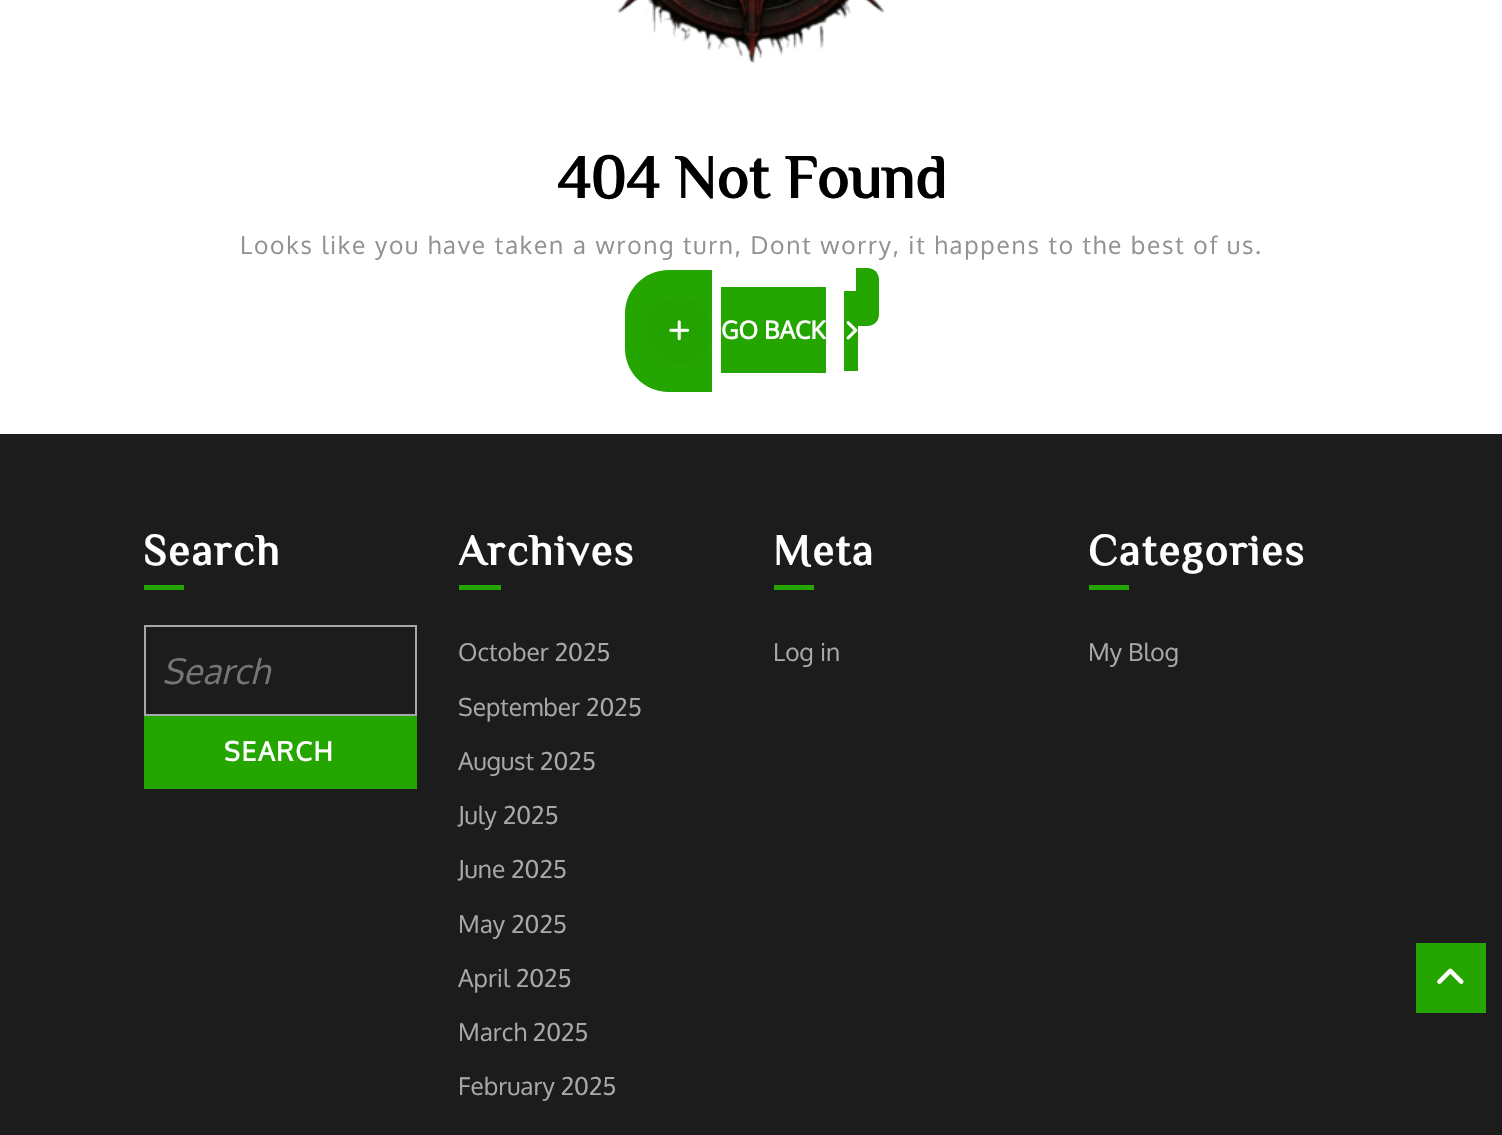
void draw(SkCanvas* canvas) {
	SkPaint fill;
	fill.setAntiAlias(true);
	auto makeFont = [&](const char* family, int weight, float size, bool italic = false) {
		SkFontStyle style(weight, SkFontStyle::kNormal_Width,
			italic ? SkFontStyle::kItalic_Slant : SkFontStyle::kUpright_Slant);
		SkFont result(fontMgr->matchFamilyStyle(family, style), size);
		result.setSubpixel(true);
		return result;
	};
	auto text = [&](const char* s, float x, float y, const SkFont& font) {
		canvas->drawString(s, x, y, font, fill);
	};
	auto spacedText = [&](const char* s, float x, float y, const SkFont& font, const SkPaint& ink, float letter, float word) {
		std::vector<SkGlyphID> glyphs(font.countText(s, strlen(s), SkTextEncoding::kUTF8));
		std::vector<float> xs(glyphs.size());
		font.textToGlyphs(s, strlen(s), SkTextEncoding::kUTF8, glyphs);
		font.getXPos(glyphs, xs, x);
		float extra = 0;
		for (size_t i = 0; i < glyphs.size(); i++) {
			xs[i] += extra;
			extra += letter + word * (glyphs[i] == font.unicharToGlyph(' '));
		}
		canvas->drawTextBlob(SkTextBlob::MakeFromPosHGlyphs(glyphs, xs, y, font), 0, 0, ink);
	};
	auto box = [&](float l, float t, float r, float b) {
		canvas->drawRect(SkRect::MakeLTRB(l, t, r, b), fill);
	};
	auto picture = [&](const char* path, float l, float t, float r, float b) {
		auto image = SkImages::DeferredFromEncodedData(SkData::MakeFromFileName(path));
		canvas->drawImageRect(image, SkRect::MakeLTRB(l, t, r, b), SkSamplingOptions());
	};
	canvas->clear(0xFFFFFFFF);
	picture("image0.png", 617, 0, 885, 63);
	fill.setColor(0xFF24A500);
	canvas->drawPath(SkPathBuilder().moveTo(668.5f, 270).lineTo(712, 270).lineTo(712, 392).lineTo(668.5f, 392).cubicTo(644.5f, 392, 625, 372.5f, 625, 348.5f).lineTo(625, 313.5f).cubicTo(625, 289.5f, 644.5f, 270, 668.5f, 270).close().detach(), fill);
	box(721, 287, 826, 373);
	box(844, 291, 858, 371);
	canvas->drawPath(SkPathBuilder().moveTo(856, 268).lineTo(867.5f, 268).cubicTo(874, 268, 879, 273, 879, 279.5f).lineTo(879, 314.5f).cubicTo(879, 321, 874, 326, 867.5f, 326).lineTo(856, 326).close().detach(), fill);
	fill.setColor(0xFF23A200);
	canvas->drawCircle(679, 331, 33, fill);
	picture("image1.png", 669, 320, 690, 341);
	picture("image2.png", 846, 321, 858, 340);
	fill.setColor(0xFF1C1C1C);
	box(0, 434, 1502, 1135);
	fill.setColor(0xFF24A500);
	box(144, 585, 184, 590);
	fill.setStyle(SkPaint::kStroke_Style);
	fill.setStrokeWidth(2);
	fill.setColor(0xFFA8A8A8);
	canvas->drawRect(SkRect::MakeLTRB(145, 626, 416, 715), fill);
	fill.setStyle(SkPaint::kFill_Style);
	fill.setColor(0xFF24A500);
	box(144, 716, 417, 789);
	box(459, 585, 501, 590);
	box(774, 585, 814, 590);
	box(1089, 585, 1129, 590);
	box(1416, 943, 1486, 1013);
	picture("image3.png", 1437, 968, 1464, 984);
	auto font1 = makeFont("ZCOOL XiaoWei", 700, 61);
	fill.setColor(0xFF000000);
	text("404 Not Found", 557, 198, font1);
	auto font2 = makeFont("Oxygen", 400, 24.5f);
	fill.setColor(0xFF929292);
	spacedText("Looks like you have taken a wrong turn, Dont worry, it happens to the best of us.", 240, 254, font2, fill, 1.75f, 0);
	auto font3 = makeFont("Oxygen", 700, 24.5f);
	fill.setColor(0xFFFFFFFF);
	text("GO BACK", 721, 339, font3);
	auto font4 = makeFont("ZCOOL XiaoWei", 700, 43.75f);
	spacedText("Search", 143, 565, font4, fill, 1.75f, 0);
	auto font5 = makeFont("Oxygen", 400, 35, true);
	fill.setColor(0xFF757575);
	text("Search", 162, 684, font5);
	auto font6 = makeFont("Oxygen", 700, 26.25f);
	fill.setColor(0xFFFFFFFF);
	spacedText("SEARCH", 224, 761, font6, fill, 1.75f, 0);
	spacedText("Archives", 458, 565, font4, fill, 1.75f, 0);
	fill.setColor(0xFFA8A8A8);
	text("October 2025", 458, 661, font2);
	text("September 2025", 458, 716, font2);
	text("August 2025", 458, 770, font2);
	text("July 2025", 458, 824, font2);
	text("June 2025", 458, 878, font2);
	text("May 2025", 458, 933, font2);
	text("April 2025", 458, 987, font2);
	text("March 2025", 458, 1041, font2);
	text("February 2025", 458, 1095, font2);
	fill.setColor(0xFFFFFFFF);
	spacedText("Meta", 773, 565, font4, fill, 1.75f, 0);
	fill.setColor(0xFFA8A8A8);
	text("Log in", 773, 661, font2);
	fill.setColor(0xFFFFFFFF);
	spacedText("Categories", 1088, 565, font4, fill, 1.75f, 0);
	fill.setColor(0xFFA8A8A8);
	text("My Blog", 1088, 661, font2);
}
